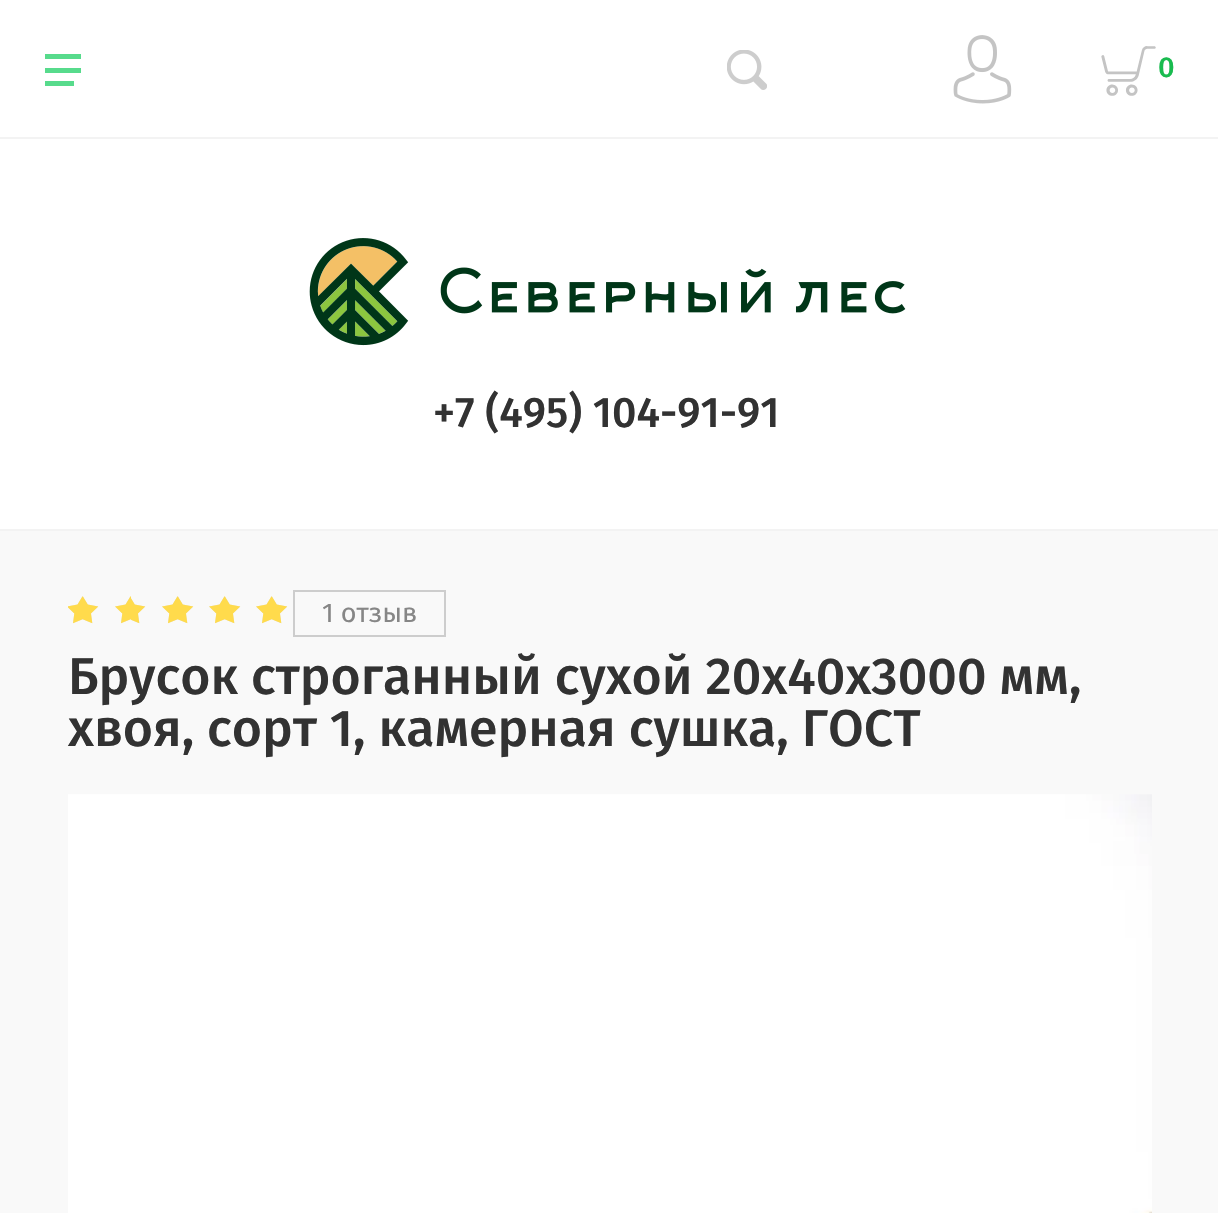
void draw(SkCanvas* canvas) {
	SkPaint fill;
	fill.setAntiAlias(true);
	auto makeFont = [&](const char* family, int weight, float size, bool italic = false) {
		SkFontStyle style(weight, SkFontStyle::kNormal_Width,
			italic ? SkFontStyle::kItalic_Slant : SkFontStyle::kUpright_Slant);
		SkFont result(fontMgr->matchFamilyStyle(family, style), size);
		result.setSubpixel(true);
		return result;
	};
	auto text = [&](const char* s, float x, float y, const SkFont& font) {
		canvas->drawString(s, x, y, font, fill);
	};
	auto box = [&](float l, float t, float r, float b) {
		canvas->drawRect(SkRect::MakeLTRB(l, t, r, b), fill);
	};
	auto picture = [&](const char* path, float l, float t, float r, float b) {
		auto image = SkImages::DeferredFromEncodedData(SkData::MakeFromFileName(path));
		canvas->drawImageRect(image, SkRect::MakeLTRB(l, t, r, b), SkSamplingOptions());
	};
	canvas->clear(0xFFF9F9F9);
	fill.setColor(0xFFFFFFFF);
	box(0, 0, 1218, 529);
	fill.setColor(0xFF57DB8C);
	box(45, 54, 81, 59);
	box(45, 68, 81, 73);
	box(45, 81, 74, 86);
	picture("image0.png", 727, 50, 767, 90);
	picture("image1.png", 953, 35, 1012, 104);
	picture("image2.png", 1101, 46, 1156, 96);
	fill.setColor(0xFFF3F3F3);
	box(0, 137, 1218, 139);
	picture("image3.png", 309, 238, 906, 346);
	box(0, 529, 1218, 531);
	picture("image4.png", 68, 596, 287, 623);
	picture("image5.png", 68, 596, 288, 624);
	fill.setStyle(SkPaint::kStroke_Style);
	fill.setStrokeWidth(2);
	fill.setColor(0xFFCDCDCD);
	canvas->drawRect(SkRect::MakeLTRB(294, 591, 445, 636), fill);
	picture("image6.png", 68, 794, 1152, 1213);
	auto font1 = makeFont("Fira Sans", 500, 29);
	fill.setStyle(SkPaint::kFill_Style);
	fill.setColor(0xFF19BB4F);
	text("0", 1158, 77, font1);
	auto font2 = makeFont("Fira Sans", 500, 42.75f);
	fill.setColor(0xFF323232);
	text("+7 (495) 104-91-91", 433, 427, font2);
	auto font3 = makeFont("Fira Sans", 400, 27);
	fill.setColor(0xFF868686);
	text("1 отзыв", 322, 622, font3);
	auto font4 = makeFont("Fira Sans", 500, 51.75f);
	fill.setColor(0xFF323232);
	text("Брусок строганный сухой 20х40х3000 мм,", 68, 694, font4);
	text("хвоя, сорт 1, камерная сушка, ГОСТ", 68, 746, font4);
}
